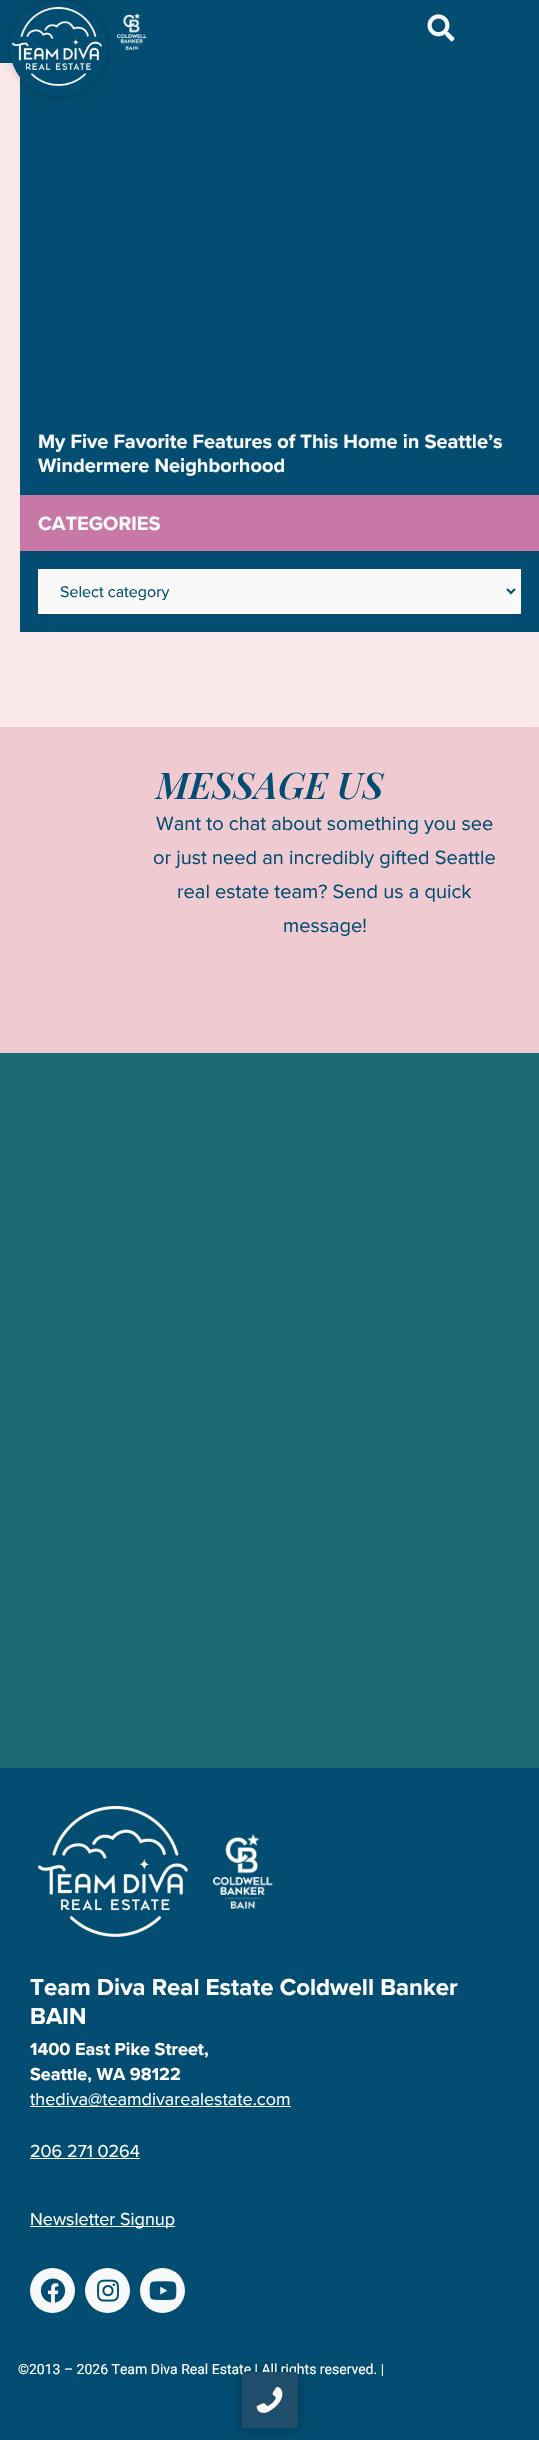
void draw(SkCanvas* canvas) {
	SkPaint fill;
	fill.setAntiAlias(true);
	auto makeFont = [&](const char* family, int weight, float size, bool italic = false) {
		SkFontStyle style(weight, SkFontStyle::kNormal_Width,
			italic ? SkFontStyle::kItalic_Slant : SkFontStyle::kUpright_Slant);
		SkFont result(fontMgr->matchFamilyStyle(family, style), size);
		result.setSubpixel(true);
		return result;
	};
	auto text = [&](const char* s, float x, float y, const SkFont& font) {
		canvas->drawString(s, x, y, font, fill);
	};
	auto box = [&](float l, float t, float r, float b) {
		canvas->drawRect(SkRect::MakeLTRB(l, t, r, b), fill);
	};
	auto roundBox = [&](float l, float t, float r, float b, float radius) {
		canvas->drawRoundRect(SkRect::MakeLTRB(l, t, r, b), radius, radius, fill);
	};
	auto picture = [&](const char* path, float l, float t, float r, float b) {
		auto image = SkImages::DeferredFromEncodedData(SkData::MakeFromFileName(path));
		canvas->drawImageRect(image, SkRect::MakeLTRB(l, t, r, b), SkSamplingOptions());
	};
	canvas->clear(0xFFFAE8EB);
	fill.setColor(0xFF024D71);
	box(0, 0, 539, 63);
	picture("image1.png", 117, 13, 147, 50);
	box(20, 63, 539, 632);
	fill.setColor(0x33000000);
	fill.setMaskFilter(SkMaskFilter::MakeBlur(kNormal_SkBlurStyle, 5));
	canvas->drawRoundRect(SkRect::MakeLTRB(10, 0, 107, 96), 48, 48, fill);
	fill.setMaskFilter(nullptr);
	fill.setColor(0xFF024D71);
	roundBox(10, 0, 107, 96, 48);
	picture("image0.png", 12, 7, 102, 86);
	picture("image2.png", 427, 14, 455, 42);
	fill.setColor(0xFFC778A6);
	box(20, 495, 539, 551);
	fill.setColor(0xFFF9F9F9);
	canvas->drawRect(SkRect::MakeLTRB(39, 570, 520, 613), fill);
	fill.setStyle(SkPaint::kStroke_Style);
	fill.setStrokeWidth(2);
	fill.setColor(0xFFFFFFFF);
	canvas->drawRect(SkRect::MakeLTRB(39, 570, 520, 613), fill);
	fill.setColor(0xFF024D71);
	canvas->drawPath(SkPathBuilder().moveTo(507, 589).lineTo(511, 593).lineTo(515, 589).detach(), fill);
	fill.setStyle(SkPaint::kFill_Style);
	fill.setColor(0xFFF0CAD1);
	box(0, 727, 539, 1053);
	fill.setColor(0xFF1B6975);
	box(0, 1053, 539, 1768);
	fill.setColor(0xFF024D71);
	box(0, 1768, 539, 2440);
	picture("image3.png", 38, 1806, 188, 1937);
	picture("image4.png", 213, 1834, 273, 1909);
	fill.setColor(0xFFFFFFFF);
	box(30, 2106, 291, 2107);
	box(30, 2158, 140, 2159);
	box(30, 2226, 175, 2227);
	fill.setColor(0xFFF8F9FA);
	canvas->drawCircle(52.5f, 2290.5f, 22.5f, fill);
	picture("image5.png", 40, 2278, 66, 2303);
	canvas->drawCircle(107.5f, 2290.5f, 22.5f, fill);
	picture("image6.png", 97, 2279, 119, 2302);
	canvas->drawCircle(162.5f, 2290.5f, 22.5f, fill);
	picture("image7.png", 149, 2281, 177, 2300);
	fill.setColor(0x29000000);
	fill.setMaskFilter(SkMaskFilter::MakeBlur(kNormal_SkBlurStyle, 4));
	canvas->drawRoundRect(SkRect::MakeLTRB(238, 2368, 302, 2432), 8, 8, fill);
	fill.setMaskFilter(nullptr);
	auto font1 = makeFont("Proxima Nova", 700, 20);
	fill.setColor(0xFFF8F9FA);
	text("My Five Favorite Features of This Home in Seattle’s", 38, 448, font1);
	text("Windermere Neighborhood", 38, 472, font1);
	text("CATEGORIES", 38, 530, font1);
	auto font2 = makeFont("Proxima Nova", 400, 16);
	fill.setColor(0xFF024D71);
	text("Select category", 60, 597, font2);
	auto font3 = makeFont("Playfair Display", 600, 36.75f, true);
	text("MESSAGE US", 156, 799, font3);
	auto font4 = makeFont("Proxima Nova", 400, 20);
	text("Want to chat about something you see", 156, 830, font4);
	text("or just need an incredibly gifted Seattle", 153, 864, font4);
	text("real estate team? Send us a quick", 177, 898, font4);
	text("message!", 283, 932, font4);
	auto font5 = makeFont("Proxima Nova", 700, 24);
	fill.setColor(0xFFFFFFFF);
	text("Team Diva Real Estate Coldwell Banker", 30, 1995, font5);
	text("BAIN", 30, 2024, font5);
	auto font6 = makeFont("Proxima Nova", 700, 18);
	text("1400 East Pike Street,", 30, 2055, font6);
	text("Seattle, WA 98122", 30, 2080, font6);
	auto font7 = makeFont("Proxima Nova", 400, 18);
	text("thediva@teamdivarealestate.com", 30, 2105, font7);
	text("206 271 0264", 30, 2157, font7);
	text("Newsletter Signup", 30, 2225, font7);
	auto font8 = makeFont("Roboto", 400, 14);
	text("©2013 – 2026 Team Diva Real Estate | All rights reserved. |", 18, 2374, font8);
	fill.setColor(0xFF1F4E6A);
	roundBox(242, 2372, 298, 2428, 4);
	picture("image8.png", 256, 2387, 283, 2413);
}
